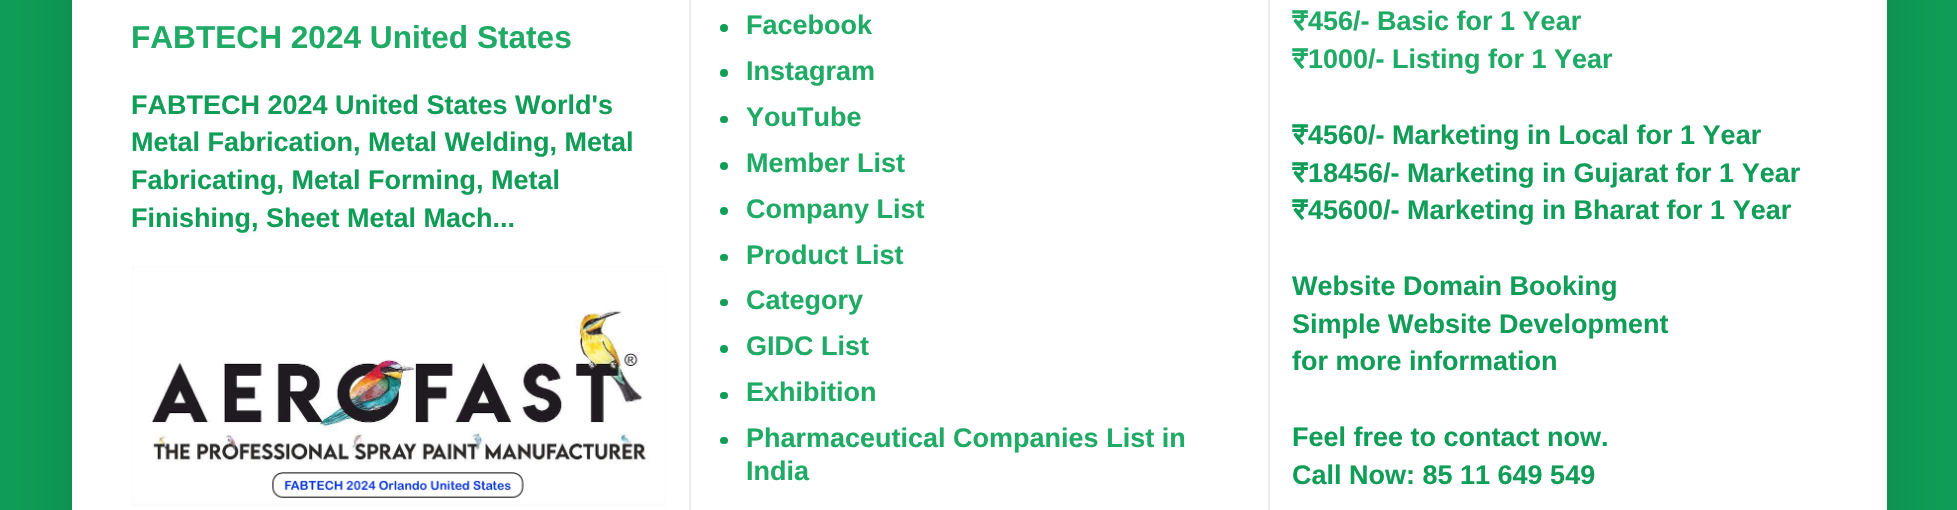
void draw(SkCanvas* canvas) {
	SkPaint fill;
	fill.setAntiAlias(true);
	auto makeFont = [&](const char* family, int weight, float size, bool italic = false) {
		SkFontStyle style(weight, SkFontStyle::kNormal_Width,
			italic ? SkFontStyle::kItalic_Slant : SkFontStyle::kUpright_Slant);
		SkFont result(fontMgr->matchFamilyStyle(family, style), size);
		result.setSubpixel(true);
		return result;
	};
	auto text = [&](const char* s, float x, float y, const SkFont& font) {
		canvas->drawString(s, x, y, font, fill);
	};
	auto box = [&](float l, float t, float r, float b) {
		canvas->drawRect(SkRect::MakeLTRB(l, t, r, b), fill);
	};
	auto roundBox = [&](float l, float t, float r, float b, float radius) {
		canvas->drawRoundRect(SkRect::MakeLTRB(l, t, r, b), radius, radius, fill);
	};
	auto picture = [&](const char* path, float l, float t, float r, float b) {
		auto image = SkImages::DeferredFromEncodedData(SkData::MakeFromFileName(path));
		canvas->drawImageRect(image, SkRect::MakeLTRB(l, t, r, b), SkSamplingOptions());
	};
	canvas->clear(0xFF0F9D58);
	fill.setColor(0x26000000);
	fill.setMaskFilter(SkMaskFilter::MakeBlur(kNormal_SkBlurStyle, 30));
	canvas->drawRect(SkRect::MakeLTRB(72, -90, 1887, 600), fill);
	fill.setMaskFilter(nullptr);
	fill.setColor(0xFFFFFFFF);
	box(72, 0, 1887, 510);
	picture("image0.png", 132, 266, 666, 506);
	fill.setColor(0xFFECECEC);
	box(689, 0, 691, 510);
	fill.setColor(0xFF0F9D58);
	canvas->drawCircle(724, 28, 4, fill);
	canvas->drawCircle(724, 73, 4, fill);
	roundBox(720, 116, 728, 123, 3.5f);
	canvas->drawCircle(724, 166, 4, fill);
	canvas->drawCircle(724, 211, 4, fill);
	roundBox(720, 254, 728, 261, 3.5f);
	roundBox(720, 299, 728, 306, 3.5f);
	canvas->drawCircle(724, 349, 4, fill);
	roundBox(720, 392, 728, 399, 3.5f);
	roundBox(720, 437, 728, 444, 3.5f);
	fill.setColor(0xFFECECEC);
	box(1268, 0, 1270, 510);
	auto font1 = makeFont("Liberation Sans", 700, 31.6f);
	fill.setColor(0xFF1FAB65);
	text("FABTECH 2024 United States", 131, 48, font1);
	auto font2 = makeFont("Liberation Sans", 700, 27);
	fill.setColor(0xFF0F9D58);
	text("FABTECH 2024 United States World's", 131, 114, font2);
	text("Metal Fabrication, Metal Welding, Metal", 131, 151, font2);
	text("Fabricating, Metal Forming, Metal", 131, 189, font2);
	text("Finishing, Sheet Metal Mach...", 131, 227, font2);
	fill.setColor(0xFF1FAB65);
	text("Facebook", 746, 34, font2);
	text("Instagram", 746, 80, font2);
	text("YouTube", 746, 126, font2);
	text("Member List", 746, 172, font2);
	text("Company List", 746, 218, font2);
	text("Product List", 746, 264, font2);
	text("Category", 746, 309, font2);
	text("GIDC List", 746, 355, font2);
	text("Exhibition", 746, 401, font2);
	text("Pharmaceutical Companies List in", 746, 447, font2);
	text("India", 746, 480, font2);
	auto font3 = makeFont("FreeSans", 600, 27);
	text("₹", 1292, 30, font3);
	text("456/- Basic for 1 Year", 1308, 30, font2);
	text("₹", 1292, 68, font3);
	text("1000/- Listing for 1 Year", 1308, 68, font2);
	fill.setColor(0xFF0F9D58);
	text("₹", 1292, 144, font3);
	text("4560/- Marketing in Local for 1 Year", 1308, 144, font2);
	text("₹", 1292, 182, font3);
	text("18456/- Marketing in Gujarat for 1 Year", 1308, 182, font2);
	text("₹", 1292, 219, font3);
	text("45600/- Marketing in Bharat for 1 Year", 1308, 219, font2);
	text("Website Domain Booking", 1292, 295, font2);
	text("Simple Website Development", 1292, 333, font2);
	text("for more information", 1292, 370, font2);
	text("Feel free to contact now.", 1292, 446, font2);
	text("Call Now: 85 11 649 549", 1292, 484, font2);
}
